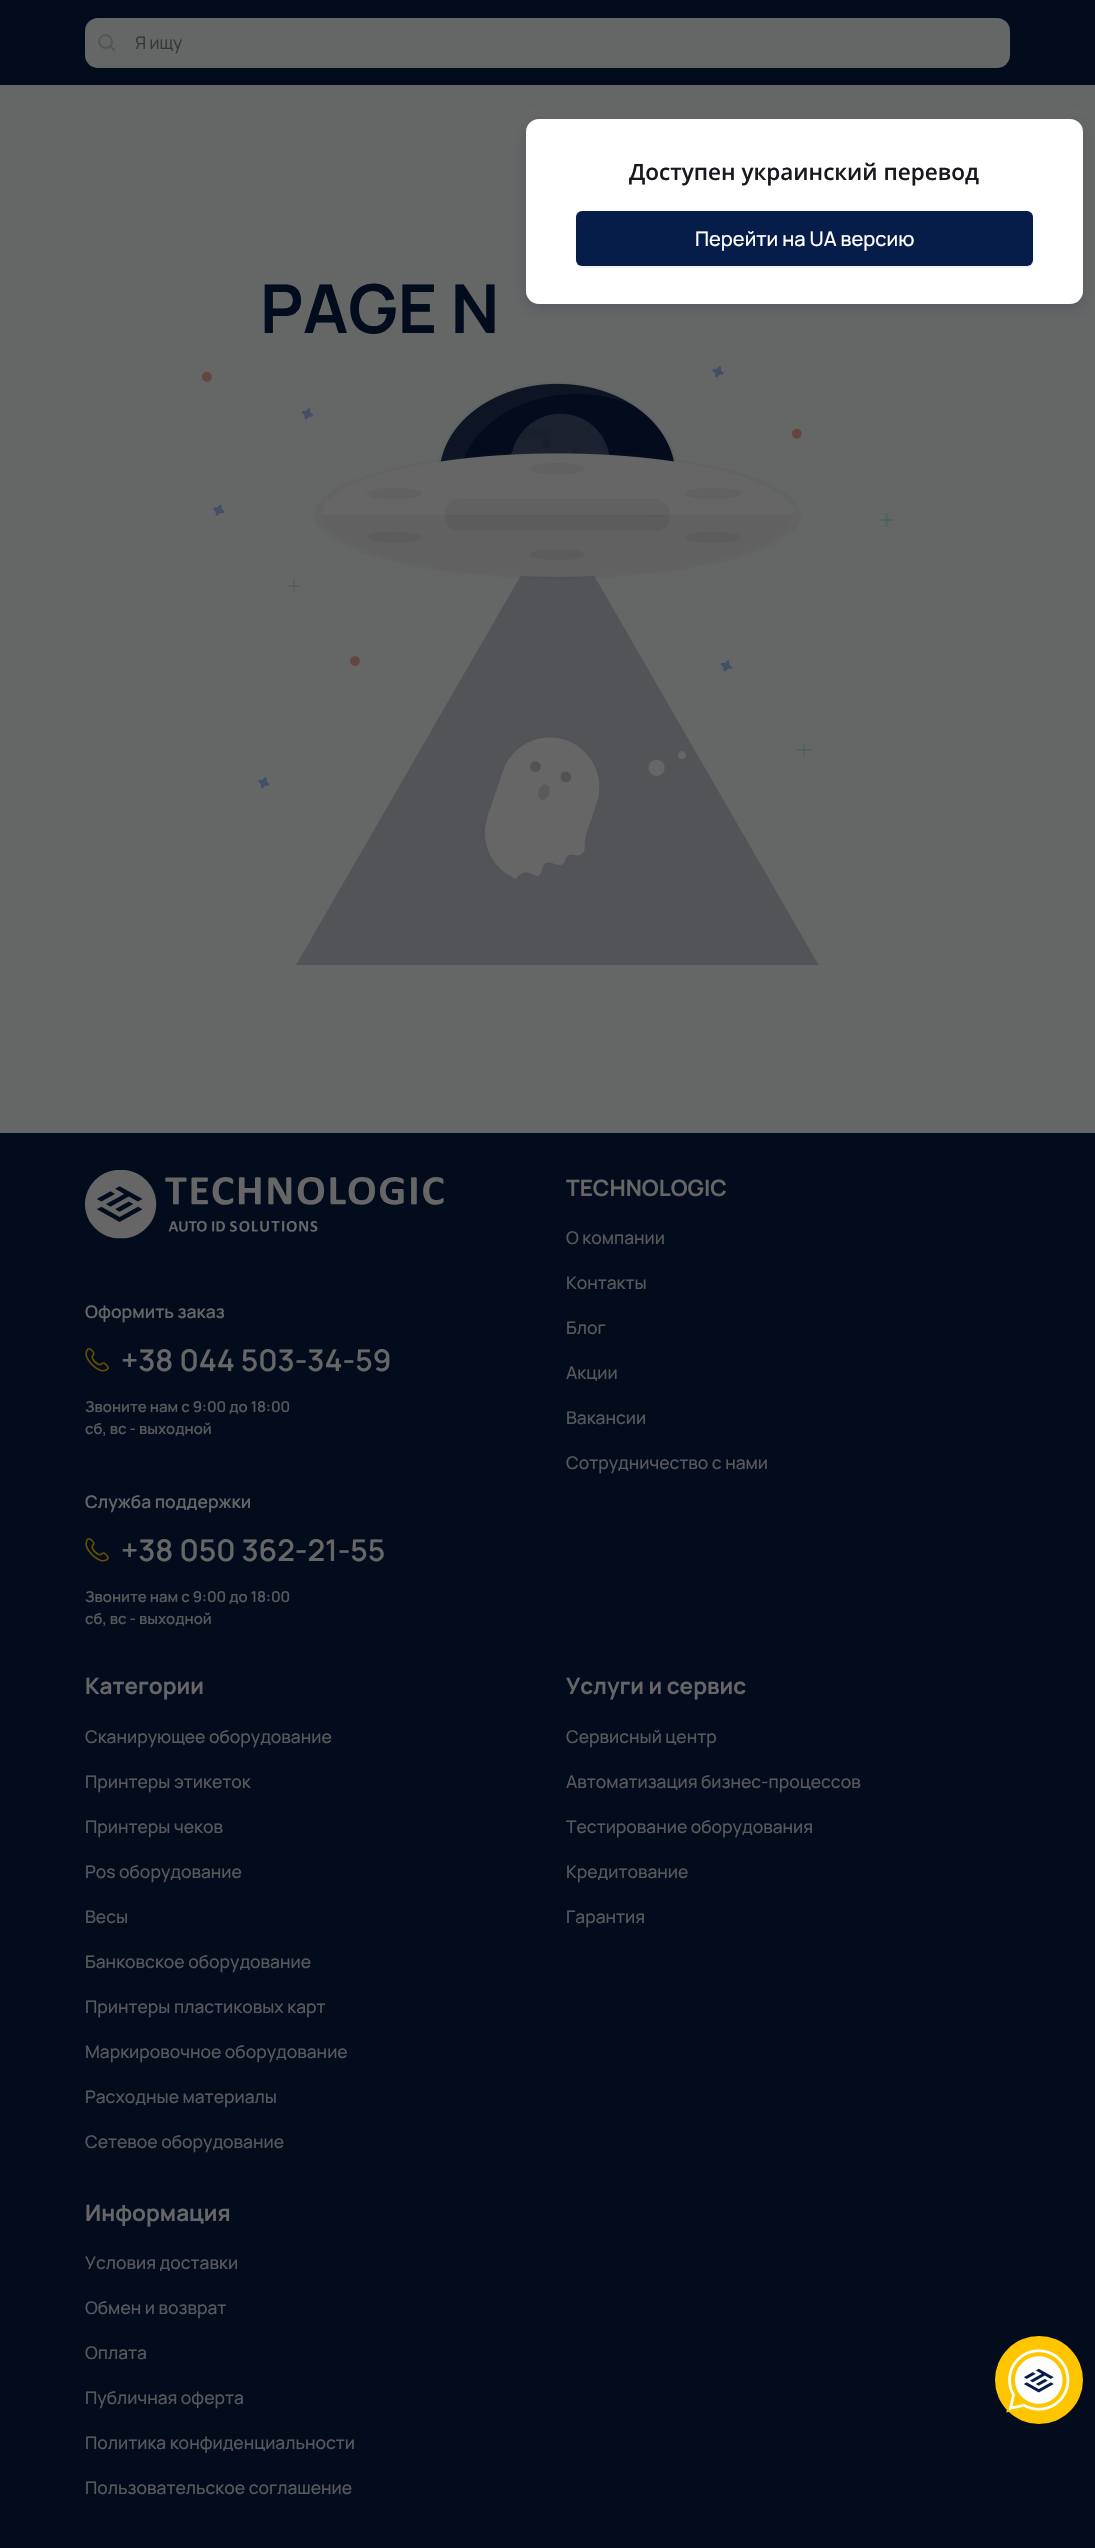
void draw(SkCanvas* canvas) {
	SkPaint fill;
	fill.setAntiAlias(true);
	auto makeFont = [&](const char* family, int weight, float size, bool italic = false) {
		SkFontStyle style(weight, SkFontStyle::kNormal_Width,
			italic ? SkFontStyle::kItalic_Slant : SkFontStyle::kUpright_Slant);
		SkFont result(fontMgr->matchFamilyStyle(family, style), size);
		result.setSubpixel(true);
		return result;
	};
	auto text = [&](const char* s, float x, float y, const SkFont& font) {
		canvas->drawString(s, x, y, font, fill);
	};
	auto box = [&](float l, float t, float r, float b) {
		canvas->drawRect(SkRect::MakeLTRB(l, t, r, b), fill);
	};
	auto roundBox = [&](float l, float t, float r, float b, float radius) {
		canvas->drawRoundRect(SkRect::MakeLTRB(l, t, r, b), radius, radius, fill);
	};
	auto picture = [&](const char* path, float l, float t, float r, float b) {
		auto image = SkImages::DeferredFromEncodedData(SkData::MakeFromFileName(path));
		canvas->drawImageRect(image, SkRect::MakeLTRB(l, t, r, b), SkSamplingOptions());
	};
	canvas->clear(0xFF656666);
	fill.setColor(0xFF030C1D);
	box(0, 0, 1095, 85);
	fill.setColor(0xFF656666);
	roundBox(85, 18, 1010, 68, 13);
	picture("image0.png", 98, 34, 116, 52);
	fill.setColor(0x2B071D49);
	fill.setMaskFilter(SkMaskFilter::MakeBlur(kNormal_SkBlurStyle, 7));
	canvas->drawRoundRect(SkRect::MakeLTRB(526, 124, 1083, 309), 13, 13, fill);
	fill.setMaskFilter(nullptr);
	fill.setColor(0xFFFFFFFF);
	roundBox(526, 119, 1083, 304, 13);
	fill.setColor(0x0D000000);
	fill.setMaskFilter(SkMaskFilter::MakeBlur(kNormal_SkBlurStyle, 1));
	canvas->drawRoundRect(SkRect::MakeLTRB(576, 213, 1033, 268), 6, 6, fill);
	fill.setMaskFilter(nullptr);
	fill.setColor(0xFF071D49);
	roundBox(576, 211, 1033, 266, 6);
	picture("image1.png", 202, 366, 893, 965);
	fill.setColor(0xFF030C1D);
	box(0, 1133, 1095, 2548);
	picture("image2.png", 85, 1170, 444, 1239);
	picture("image3.png", 85, 1348, 109, 1372);
	picture("image3.png", 85, 1538, 109, 1562);
	fill.setColor(0xFFFFC600);
	canvas->drawCircle(1039, 2380, 44, fill);
	picture("image4.png", 1006, 2349, 1070, 2413);
	auto font1 = makeFont("Manrope", 400, 17.5f);
	fill.setColor(0xFF323437);
	text("Я ищу", 135, 49, font1);
	auto font2 = makeFont("Open Sans", 600, 22.5f);
	fill.setColor(0xFF18191F);
	text("Доступен украинский перевод", 629, 180, font2);
	auto font3 = makeFont("Manrope", 500, 20);
	fill.setColor(0xFFFFFFFF);
	text("Перейти на UA версию", 695, 246, font3);
	auto font4 = makeFont("Manrope", 700, 67.5f);
	fill.setColor(0xFF030C1D);
	text("PAGE N", 260, 333, font4);
	auto font5 = makeFont("Manrope", 600, 17.5f);
	fill.setColor(0xFF666666);
	text("Оформить заказ", 85, 1318, font5);
	auto font6 = makeFont("Manrope", 600, 30);
	text("+38 044 503-34-59", 121, 1371, font6);
	auto font7 = makeFont("Manrope", 600, 15);
	fill.setColor(0xFF57585A);
	text("Звоните нам с 9:00 до 18:00", 85, 1412, font7);
	text("сб, вс - выходной", 85, 1434, font7);
	fill.setColor(0xFF666666);
	text("Служба поддержки", 85, 1508, font5);
	text("+38 050 362-21-55", 121, 1561, font6);
	fill.setColor(0xFF57585A);
	text("Звоните нам с 9:00 до 18:00", 85, 1602, font7);
	text("сб, вс - выходной", 85, 1624, font7);
	auto font8 = makeFont("Manrope", 700, 22.5f);
	fill.setColor(0xFF666666);
	text("TECHNOLOGIC", 566, 1196, font8);
	auto font9 = makeFont("Manrope", 500, 17.5f);
	fill.setColor(0xFF57585A);
	text("О компании", 566, 1244, font9);
	text("Контакты", 566, 1289, font9);
	text("Блог", 566, 1334, font9);
	text("Акции", 566, 1379, font9);
	text("Вакансии", 566, 1424, font9);
	text("Сотрудничество с нами", 566, 1469, font9);
	fill.setColor(0xFF666666);
	text("Категории", 85, 1694, font8);
	fill.setColor(0xFF57585A);
	text("Сканирующее оборудование", 85, 1743, font9);
	text("Принтеры этикеток", 85, 1788, font9);
	text("Принтеры чеков", 85, 1833, font9);
	text("Pos оборудование", 85, 1878, font9);
	text("Весы", 85, 1923, font9);
	text("Банковское оборудование", 85, 1968, font9);
	text("Принтеры пластиковых карт", 85, 2013, font9);
	text("Маркировочное оборудование", 85, 2058, font9);
	text("Расходные материалы", 85, 2103, font9);
	text("Сетевое оборудование", 85, 2148, font9);
	fill.setColor(0xFF666666);
	text("Услуги и сервис", 566, 1694, font8);
	fill.setColor(0xFF57585A);
	text("Сервисный центр", 566, 1743, font9);
	text("Автоматизация бизнес-процессов", 566, 1788, font9);
	text("Тестирование оборудования", 566, 1833, font9);
	text("Кредитование", 566, 1878, font9);
	text("Гарантия", 566, 1923, font9);
	fill.setColor(0xFF666666);
	text("Информация", 85, 2221, font8);
	fill.setColor(0xFF57585A);
	text("Условия доставки", 85, 2269, font9);
	text("Обмен и возврат", 85, 2314, font9);
	text("Оплата", 85, 2359, font9);
	text("Публичная оферта", 85, 2404, font9);
	text("Политика конфиденциальности", 85, 2449, font9);
	text("Пользовательское соглашение", 85, 2494, font9);
}
